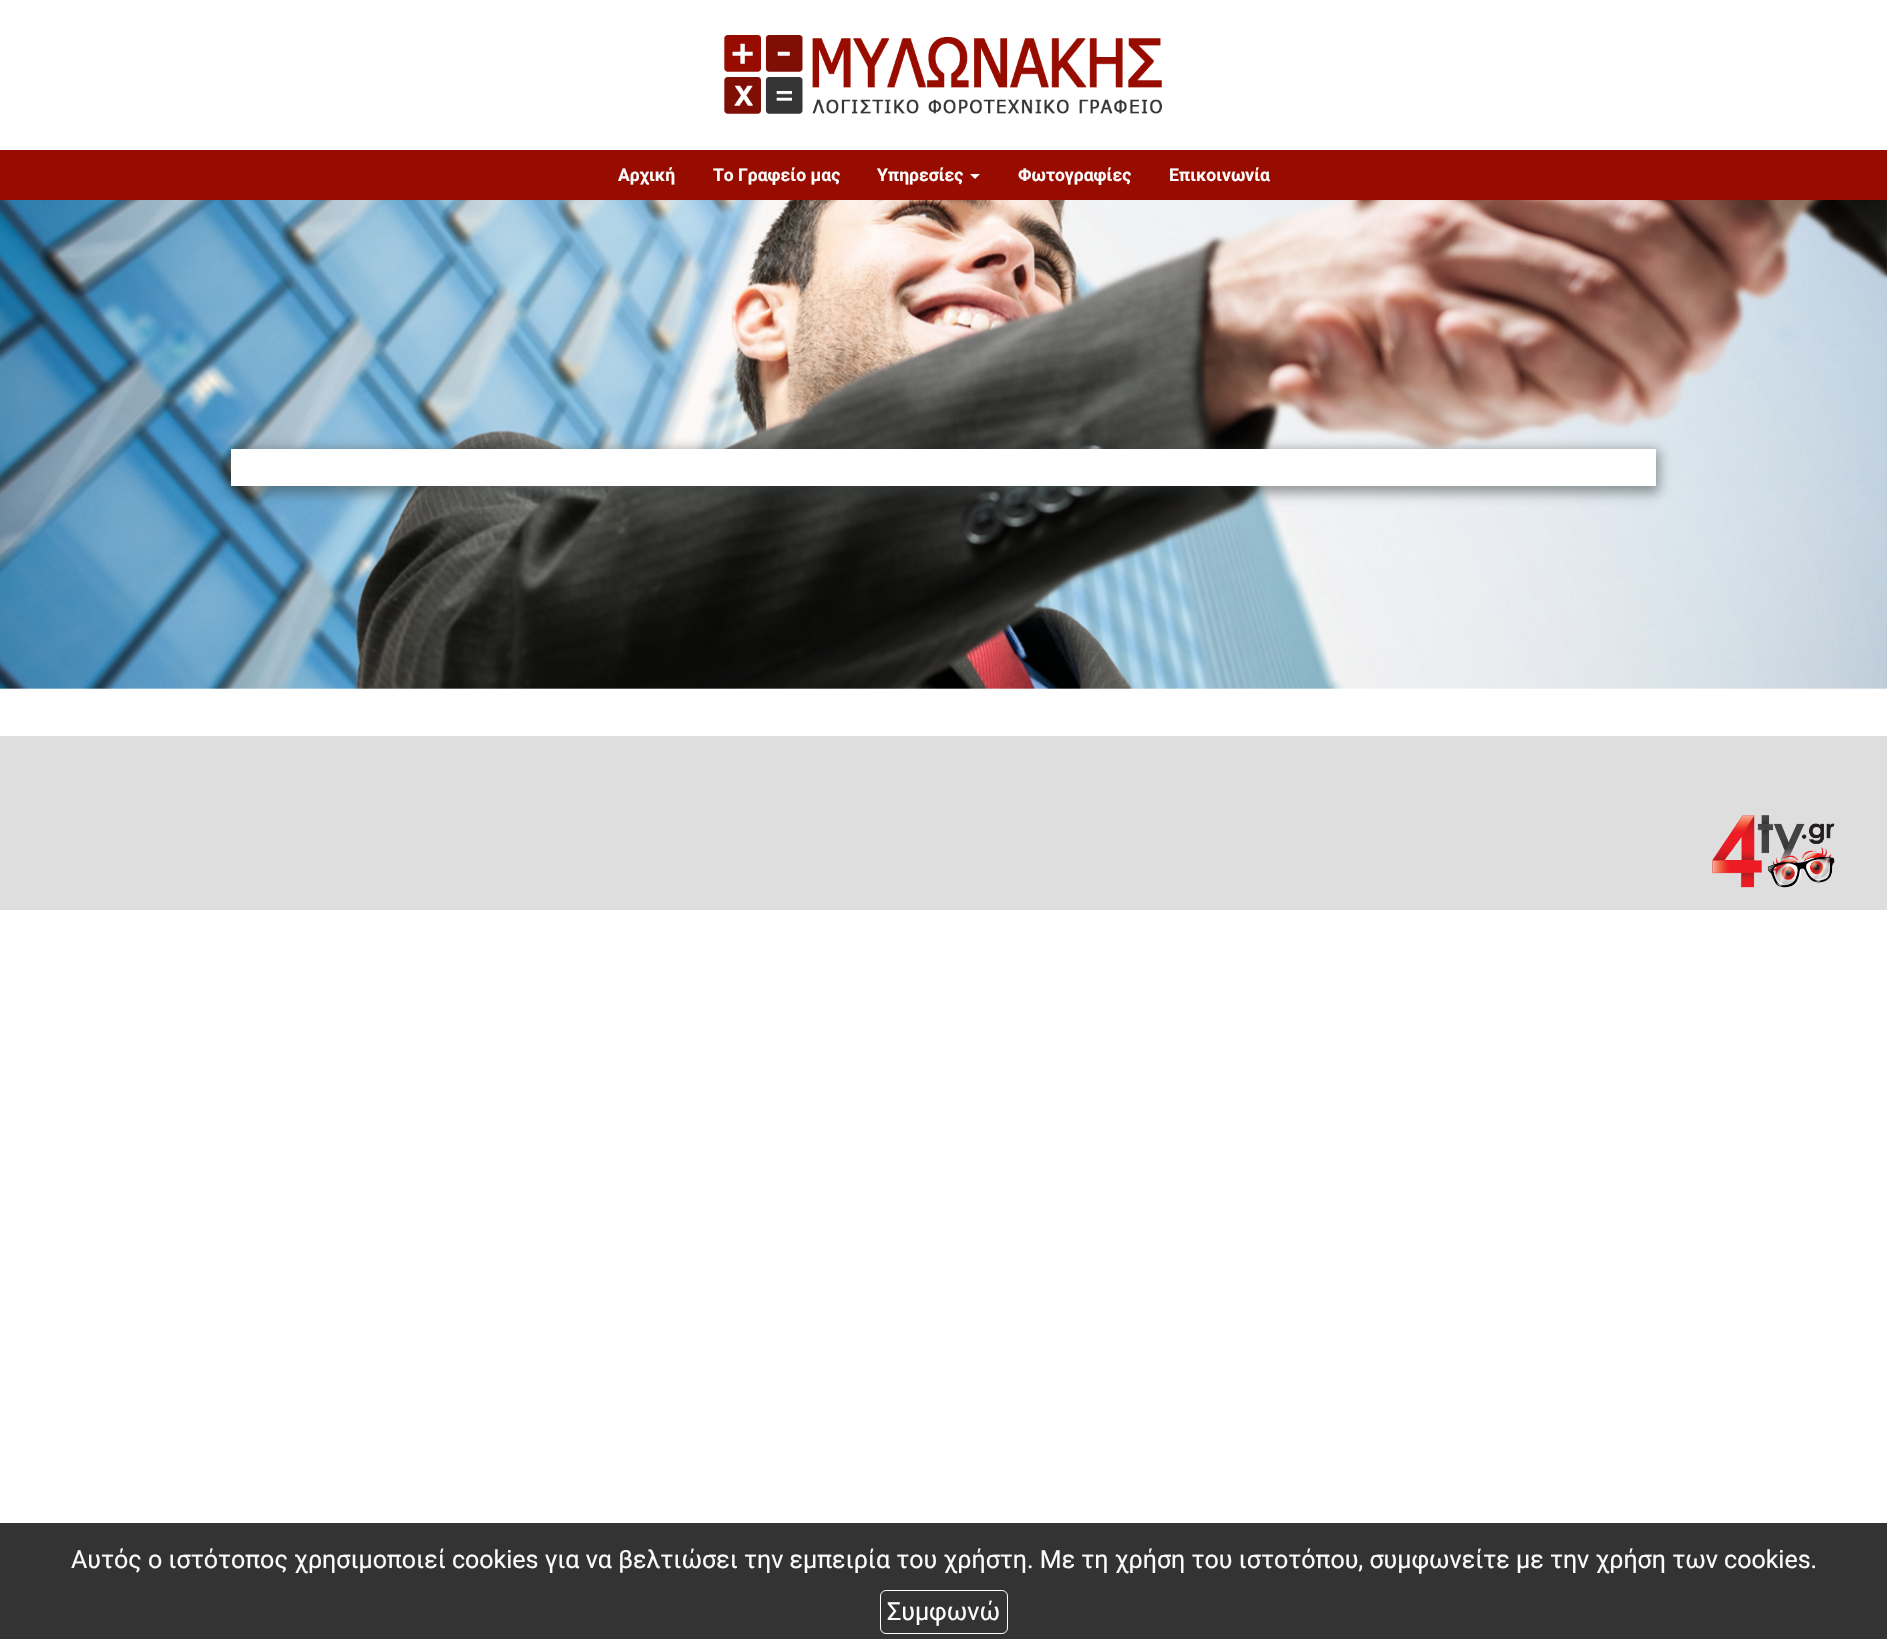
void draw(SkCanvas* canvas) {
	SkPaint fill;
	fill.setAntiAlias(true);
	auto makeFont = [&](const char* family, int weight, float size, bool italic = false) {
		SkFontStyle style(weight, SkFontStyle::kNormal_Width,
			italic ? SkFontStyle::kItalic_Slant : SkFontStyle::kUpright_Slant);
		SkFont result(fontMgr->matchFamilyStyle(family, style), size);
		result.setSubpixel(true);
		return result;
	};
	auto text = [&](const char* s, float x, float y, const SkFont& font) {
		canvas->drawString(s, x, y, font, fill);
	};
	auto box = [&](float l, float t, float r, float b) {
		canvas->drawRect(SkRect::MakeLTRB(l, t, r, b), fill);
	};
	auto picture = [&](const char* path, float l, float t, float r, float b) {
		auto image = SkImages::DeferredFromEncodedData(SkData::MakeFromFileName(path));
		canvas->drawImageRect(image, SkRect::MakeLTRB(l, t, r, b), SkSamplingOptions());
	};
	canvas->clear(0xFFFFFFFF);
	picture("image0.png", 724, 35, 1162, 114);
	fill.setColor(0xFF980C00);
	box(0, 150, 1887, 200);
	fill.setColor(0xFFFCFCFC);
	canvas->drawPath(SkPathBuilder().moveTo(970, 174).lineTo(980, 174).lineTo(975, 179).close().detach(), fill);
	picture("image1.png", 0, 200, 1887, 689);
	fill.setColor(0x80333B39);
	fill.setMaskFilter(SkMaskFilter::MakeBlur(kNormal_SkBlurStyle, 6));
	canvas->drawRect(SkRect::MakeLTRB(229, 450, 1659, 493), fill);
	fill.setMaskFilter(nullptr);
	fill.setColor(0xFFFFFFFF);
	box(231, 449, 1656, 486);
	fill.setColor(0xFFDEDEDE);
	box(0, 736, 1887, 910);
	picture("image2.png", 1712, 815, 1835, 888);
	fill.setColor(0xFF333333);
	box(0, 1523, 1887, 1639);
	fill.setStyle(SkPaint::kStroke_Style);
	fill.setStrokeWidth(1);
	fill.setColor(0xFFFFFFFF);
	canvas->drawRoundRect(SkRect::MakeLTRB(880.5f, 1590.5f, 1007.5f, 1633.5f), 5.5f, 5.5f, fill);
	auto font1 = makeFont("Roboto", 700, 17.5f);
	fill.setStyle(SkPaint::kFill_Style);
	fill.setColor(0xFFFCFCFC);
	text("Αρχική", 618, 181, font1);
	text("Το Γραφείο μας", 713, 181, font1);
	text("Υπηρεσίες", 877, 181, font1);
	text("Φωτογραφίες", 1018, 181, font1);
	text("Επικοινωνία", 1169, 181, font1);
	auto font2 = makeFont("Roboto", 400, 25);
	text("Αυτός ο ιστότοπος χρησιμοποιεί cookies για να βελτιώσει την εμπειρία του χρήστη. Με τη χρήση του ιστοτόπου, συμφωνείτε με την χρήση των cookies.", 71, 1568, font2);
	text("Συμφωνώ", 887, 1620, font2);
}
